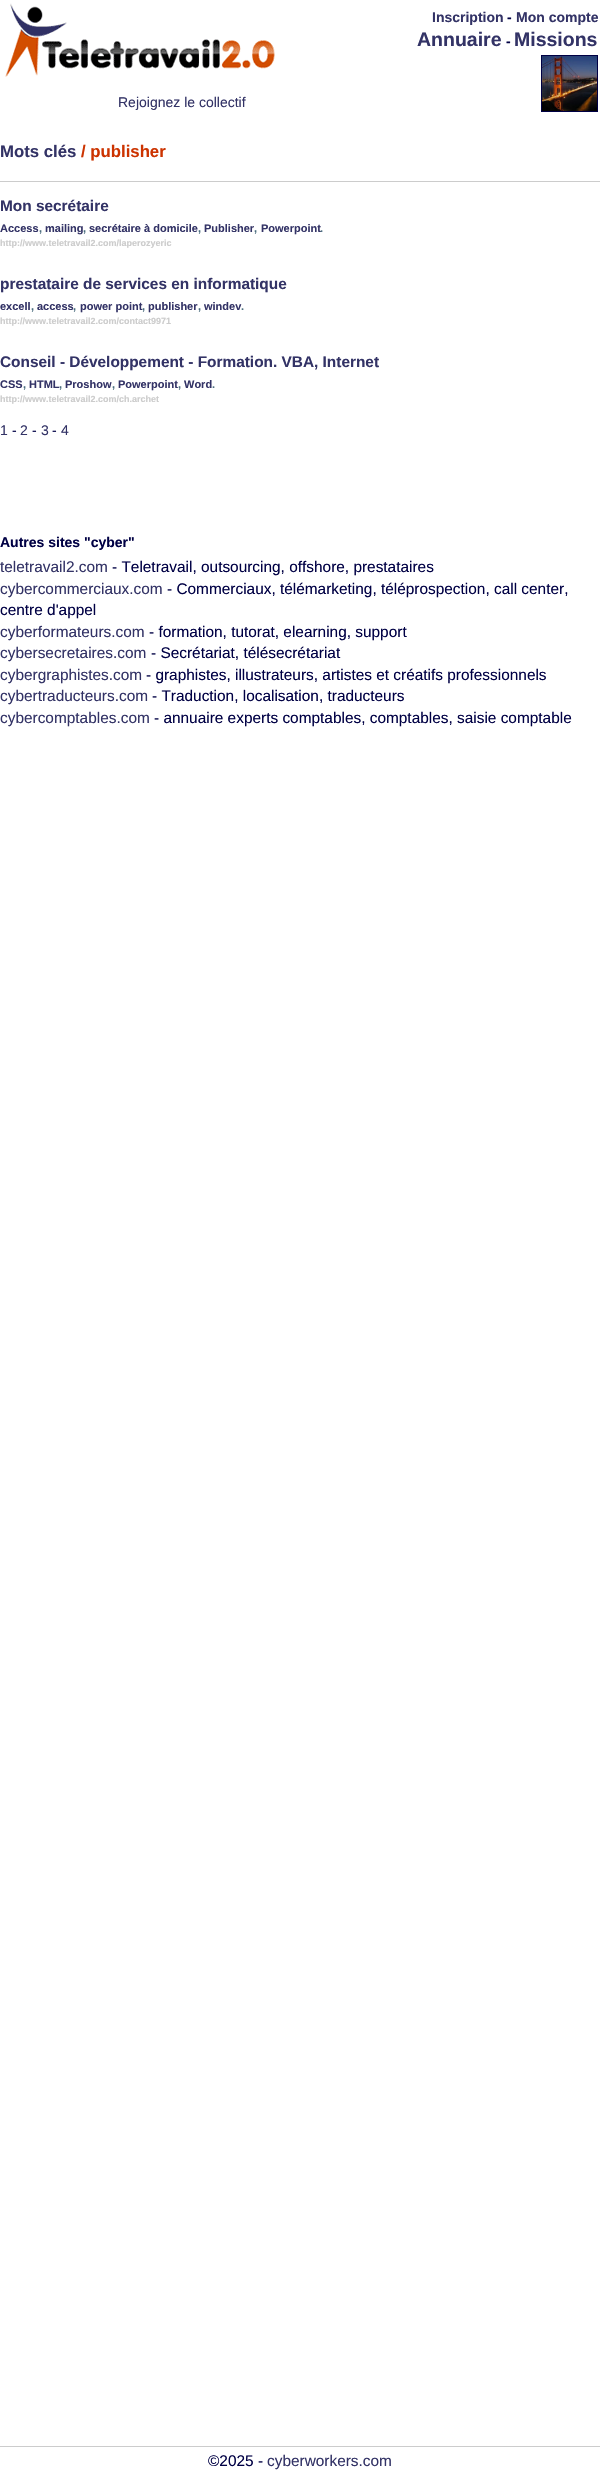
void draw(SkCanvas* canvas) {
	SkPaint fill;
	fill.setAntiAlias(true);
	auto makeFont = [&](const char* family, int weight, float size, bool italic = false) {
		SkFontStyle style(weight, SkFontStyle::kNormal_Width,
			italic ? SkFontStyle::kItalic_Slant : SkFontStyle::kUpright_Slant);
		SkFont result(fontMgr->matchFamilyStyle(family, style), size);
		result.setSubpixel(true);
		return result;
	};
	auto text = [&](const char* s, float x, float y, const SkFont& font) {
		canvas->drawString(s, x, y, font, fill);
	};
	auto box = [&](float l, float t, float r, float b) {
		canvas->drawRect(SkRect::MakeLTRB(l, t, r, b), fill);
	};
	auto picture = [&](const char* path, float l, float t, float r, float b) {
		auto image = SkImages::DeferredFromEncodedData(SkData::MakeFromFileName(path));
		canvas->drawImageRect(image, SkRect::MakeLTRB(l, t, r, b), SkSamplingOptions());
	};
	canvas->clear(0xFFFFFFFF);
	fill.setStyle(SkPaint::kStroke_Style);
	fill.setStrokeWidth(1);
	fill.setColor(0xFF000044);
	canvas->drawRect(SkRect::MakeLTRB(541.5f, 55.5f, 597.5f, 111.5f), fill);
	picture("image0.png", 542, 56, 597, 111);
	picture("image1.png", 5, 3, 275, 77);
	fill.setStyle(SkPaint::kFill_Style);
	fill.setColor(0xFFCCCCCC);
	box(0, 181, 600, 182);
	box(0, 2446, 600, 2447);
	auto font1 = makeFont("Liberation Sans", 700, 14);
	fill.setColor(0xFF333366);
	text("Inscription", 432, 22, font1);
	fill.setColor(0xFF000044);
	text("-", 507, 22, font1);
	fill.setColor(0xFF333366);
	text("Mon compte", 516, 22, font1);
	auto font2 = makeFont("Liberation Sans", 700, 19.5f);
	text("Annuaire", 417, 46, font2);
	fill.setColor(0xFF000044);
	text("-", 506, 46, font1);
	fill.setColor(0xFF333366);
	text("Missions", 514, 46, font2);
	auto font3 = makeFont("Liberation Sans", 400, 14);
	text("Rejoignez le collectif", 118, 107, font3);
	auto font4 = makeFont("Liberation Sans", 700, 16.75f);
	text("Mots clés", 0, 157, font4);
	fill.setColor(0xFFCC3300);
	text("/ publisher", 81, 157, font4);
	auto font5 = makeFont("Liberation Sans", 700, 15.4f);
	fill.setColor(0xFF333366);
	text("Mon secrétaire", 0, 211, font5);
	auto font6 = makeFont("Liberation Sans", 700, 11);
	text("Access", 0, 232, font6);
	fill.setColor(0xFF4D6F80);
	text(",", 39, 232, font6);
	fill.setColor(0xFF333366);
	text("mailing", 45, 232, font6);
	fill.setColor(0xFF4D6F80);
	text(",", 83, 232, font6);
	fill.setColor(0xFF333366);
	text("secrétaire à domicile", 89, 232, font6);
	fill.setColor(0xFF4D6F80);
	text(",", 198, 232, font6);
	fill.setColor(0xFF333366);
	text("Publisher", 204, 232, font6);
	fill.setColor(0xFF4D6F80);
	text(",", 254, 232, font6);
	fill.setColor(0xFF333366);
	text("Powerpoint", 261, 232, font6);
	fill.setColor(0xFF4D6F80);
	text(".", 320, 232, font6);
	auto font7 = makeFont("Liberation Sans", 700, 9);
	fill.setColor(0xFFCCCCCC);
	text("http://www.teletravail2.com/laperozyeric", 0, 246, font7);
	fill.setColor(0xFF333366);
	text("prestataire de services en informatique", 0, 289, font5);
	text("excell", 0, 310, font6);
	fill.setColor(0xFF4D6F80);
	text(",", 31, 310, font6);
	fill.setColor(0xFF333366);
	text("access", 37, 310, font6);
	fill.setColor(0xFF4D6F80);
	text(",", 73, 310, font6);
	fill.setColor(0xFF333366);
	text("power point", 80, 310, font6);
	fill.setColor(0xFF4D6F80);
	text(",", 142, 310, font6);
	fill.setColor(0xFF333366);
	text("publisher", 148, 310, font6);
	fill.setColor(0xFF4D6F80);
	text(",", 198, 310, font6);
	fill.setColor(0xFF333366);
	text("windev", 204, 310, font6);
	fill.setColor(0xFF4D6F80);
	text(".", 241, 310, font6);
	fill.setColor(0xFFCCCCCC);
	text("http://www.teletravail2.com/contact9971", 0, 324, font7);
	fill.setColor(0xFF333366);
	text("Conseil - Développement - Formation. VBA, Internet", 0, 367, font5);
	text("CSS", 0, 388, font6);
	fill.setColor(0xFF4D6F80);
	text(",", 23, 388, font6);
	fill.setColor(0xFF333366);
	text("HTML", 29, 388, font6);
	fill.setColor(0xFF4D6F80);
	text(",", 59, 388, font6);
	fill.setColor(0xFF333366);
	text("Proshow", 65, 388, font6);
	fill.setColor(0xFF4D6F80);
	text(",", 112, 388, font6);
	fill.setColor(0xFF333366);
	text("Powerpoint", 118, 388, font6);
	fill.setColor(0xFF4D6F80);
	text(",", 178, 388, font6);
	fill.setColor(0xFF333366);
	text("Word", 184, 388, font6);
	fill.setColor(0xFF4D6F80);
	text(".", 212, 388, font6);
	fill.setColor(0xFFCCCCCC);
	text("http://www.teletravail2.com/ch.archet", 0, 402, font7);
	fill.setColor(0xFF333366);
	text("1", 0, 435, font3);
	fill.setColor(0xFF000044);
	text("-", 12, 435, font3);
	fill.setColor(0xFF333366);
	text("2", 20, 435, font3);
	fill.setColor(0xFF000044);
	text("-", 32, 435, font3);
	fill.setColor(0xFF333366);
	text("3", 41, 435, font3);
	fill.setColor(0xFF000044);
	text("-", 52, 435, font3);
	fill.setColor(0xFF333366);
	text("4", 61, 435, font3);
	fill.setColor(0xFF000044);
	text("Autres sites \"cyber\"", 0, 547, font1);
	auto font8 = makeFont("Liberation Sans", 400, 15.4f);
	fill.setColor(0xFF333366);
	text("teletravail2.com", 0, 572, font8);
	fill.setColor(0xFF000044);
	text("- Teletravail, outsourcing, offshore, prestataires", 112, 572, font8);
	fill.setColor(0xFF333366);
	text("cybercommerciaux.com", 0, 594, font8);
	fill.setColor(0xFF000044);
	text("- Commerciaux, télémarketing, téléprospection, call center,", 167, 594, font8);
	text("centre d'appel", 0, 615, font8);
	fill.setColor(0xFF333366);
	text("cyberformateurs.com", 0, 637, font8);
	fill.setColor(0xFF000044);
	text("- formation, tutorat, elearning, support", 149, 637, font8);
	fill.setColor(0xFF333366);
	text("cybersecretaires.com", 0, 658, font8);
	fill.setColor(0xFF000044);
	text("- Secrétariat, télésecrétariat", 151, 658, font8);
	fill.setColor(0xFF333366);
	text("cybergraphistes.com", 0, 680, font8);
	fill.setColor(0xFF000044);
	text("- graphistes, illustrateurs, artistes et créatifs professionnels", 146, 680, font8);
	fill.setColor(0xFF333366);
	text("cybertraducteurs.com", 0, 701, font8);
	fill.setColor(0xFF000044);
	text("- Traduction, localisation, traducteurs", 152, 701, font8);
	fill.setColor(0xFF333366);
	text("cybercomptables.com", 0, 723, font8);
	fill.setColor(0xFF000044);
	text("- annuaire experts comptables, comptables, saisie comptable", 154, 723, font8);
	text("©2025 -", 208, 2466, font8);
	fill.setColor(0xFF333366);
	text("cyberworkers.com", 267, 2466, font8);
}
